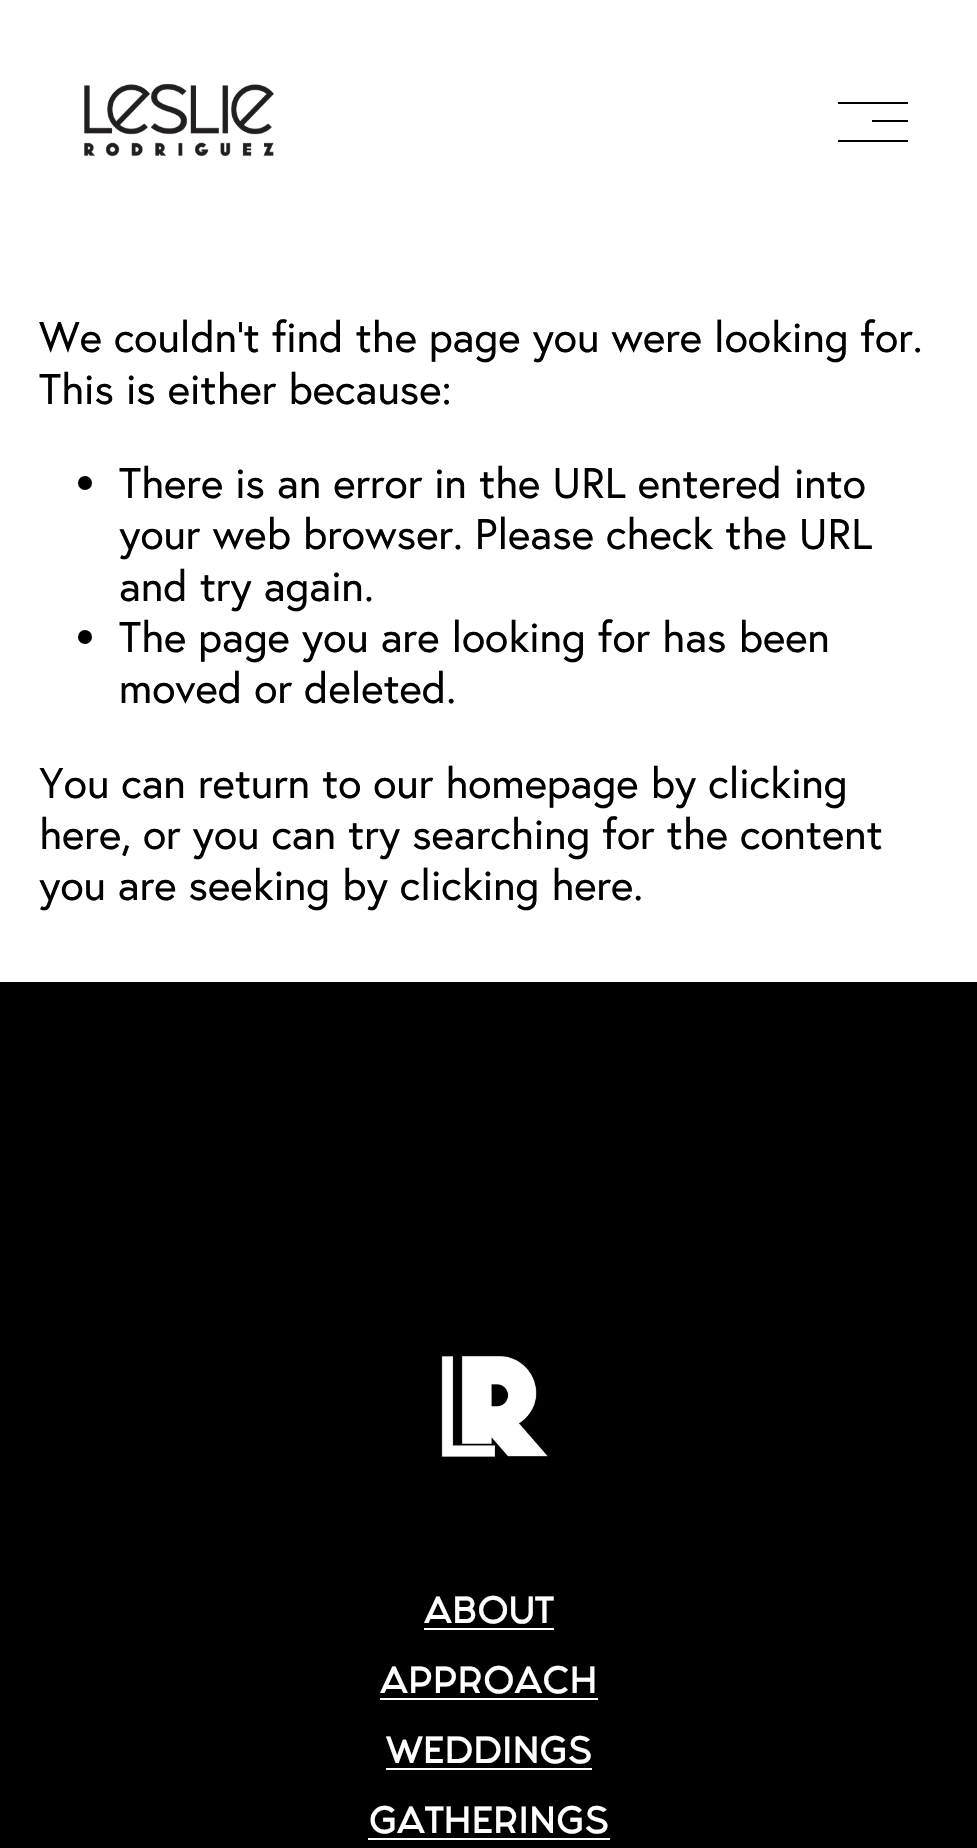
void draw(SkCanvas* canvas) {
	SkPaint fill;
	fill.setAntiAlias(true);
	auto makeFont = [&](const char* family, int weight, float size, bool italic = false) {
		SkFontStyle style(weight, SkFontStyle::kNormal_Width,
			italic ? SkFontStyle::kItalic_Slant : SkFontStyle::kUpright_Slant);
		SkFont result(fontMgr->matchFamilyStyle(family, style), size);
		result.setSubpixel(true);
		return result;
	};
	auto text = [&](const char* s, float x, float y, const SkFont& font) {
		canvas->drawString(s, x, y, font, fill);
	};
	auto box = [&](float l, float t, float r, float b) {
		canvas->drawRect(SkRect::MakeLTRB(l, t, r, b), fill);
	};
	auto picture = [&](const char* path, float l, float t, float r, float b) {
		auto image = SkImages::DeferredFromEncodedData(SkData::MakeFromFileName(path));
		canvas->drawImageRect(image, SkRect::MakeLTRB(l, t, r, b), SkSamplingOptions());
	};
	canvas->clear(0xFFFFFFFF);
	picture("image0.png", 84, 84, 274, 157);
	fill.setColor(0xFF000000);
	box(838, 102, 908, 104);
	box(872, 120, 908, 122);
	box(838, 140, 908, 142);
	canvas->drawCircle(85, 483, 7, fill);
	canvas->drawCircle(85, 637, 7, fill);
	box(0, 982, 977, 1848);
	picture("image1.png", 441, 1356, 548, 1457);
	fill.setColor(0xFFFFFFFF);
	box(424, 1628, 554, 1630);
	box(380, 1698, 598, 1700);
	box(386, 1768, 592, 1770);
	box(368, 1838, 610, 1840);
	auto font1 = makeFont("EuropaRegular", 400, 42.8f);
	fill.setColor(0xFF000000);
	text("We couldn't find the page you were looking for.", 39, 352, font1);
	text("This is either because:", 39, 404, font1);
	text("There is an error in the URL entered into", 119, 498, font1);
	text("your web browser. Please check the URL", 119, 549, font1);
	text("and try again.", 119, 601, font1);
	text("The page you are looking for has been", 119, 652, font1);
	text("moved or deleted.", 119, 703, font1);
	text("You can return to our homepage by clicking", 39, 798, font1);
	text("here, or you can try searching for the content", 39, 849, font1);
	text("you are seeking by clicking here.", 39, 900, font1);
	auto font2 = makeFont("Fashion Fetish", 700, 32);
	fill.setColor(0xFFFFFFFF);
	text("ABOUT", 424, 1623, font2);
	text("APPROACH", 380, 1693, font2);
	text("WEDDINGS", 386, 1763, font2);
	text("GATHERINGS", 369, 1833, font2);
}
